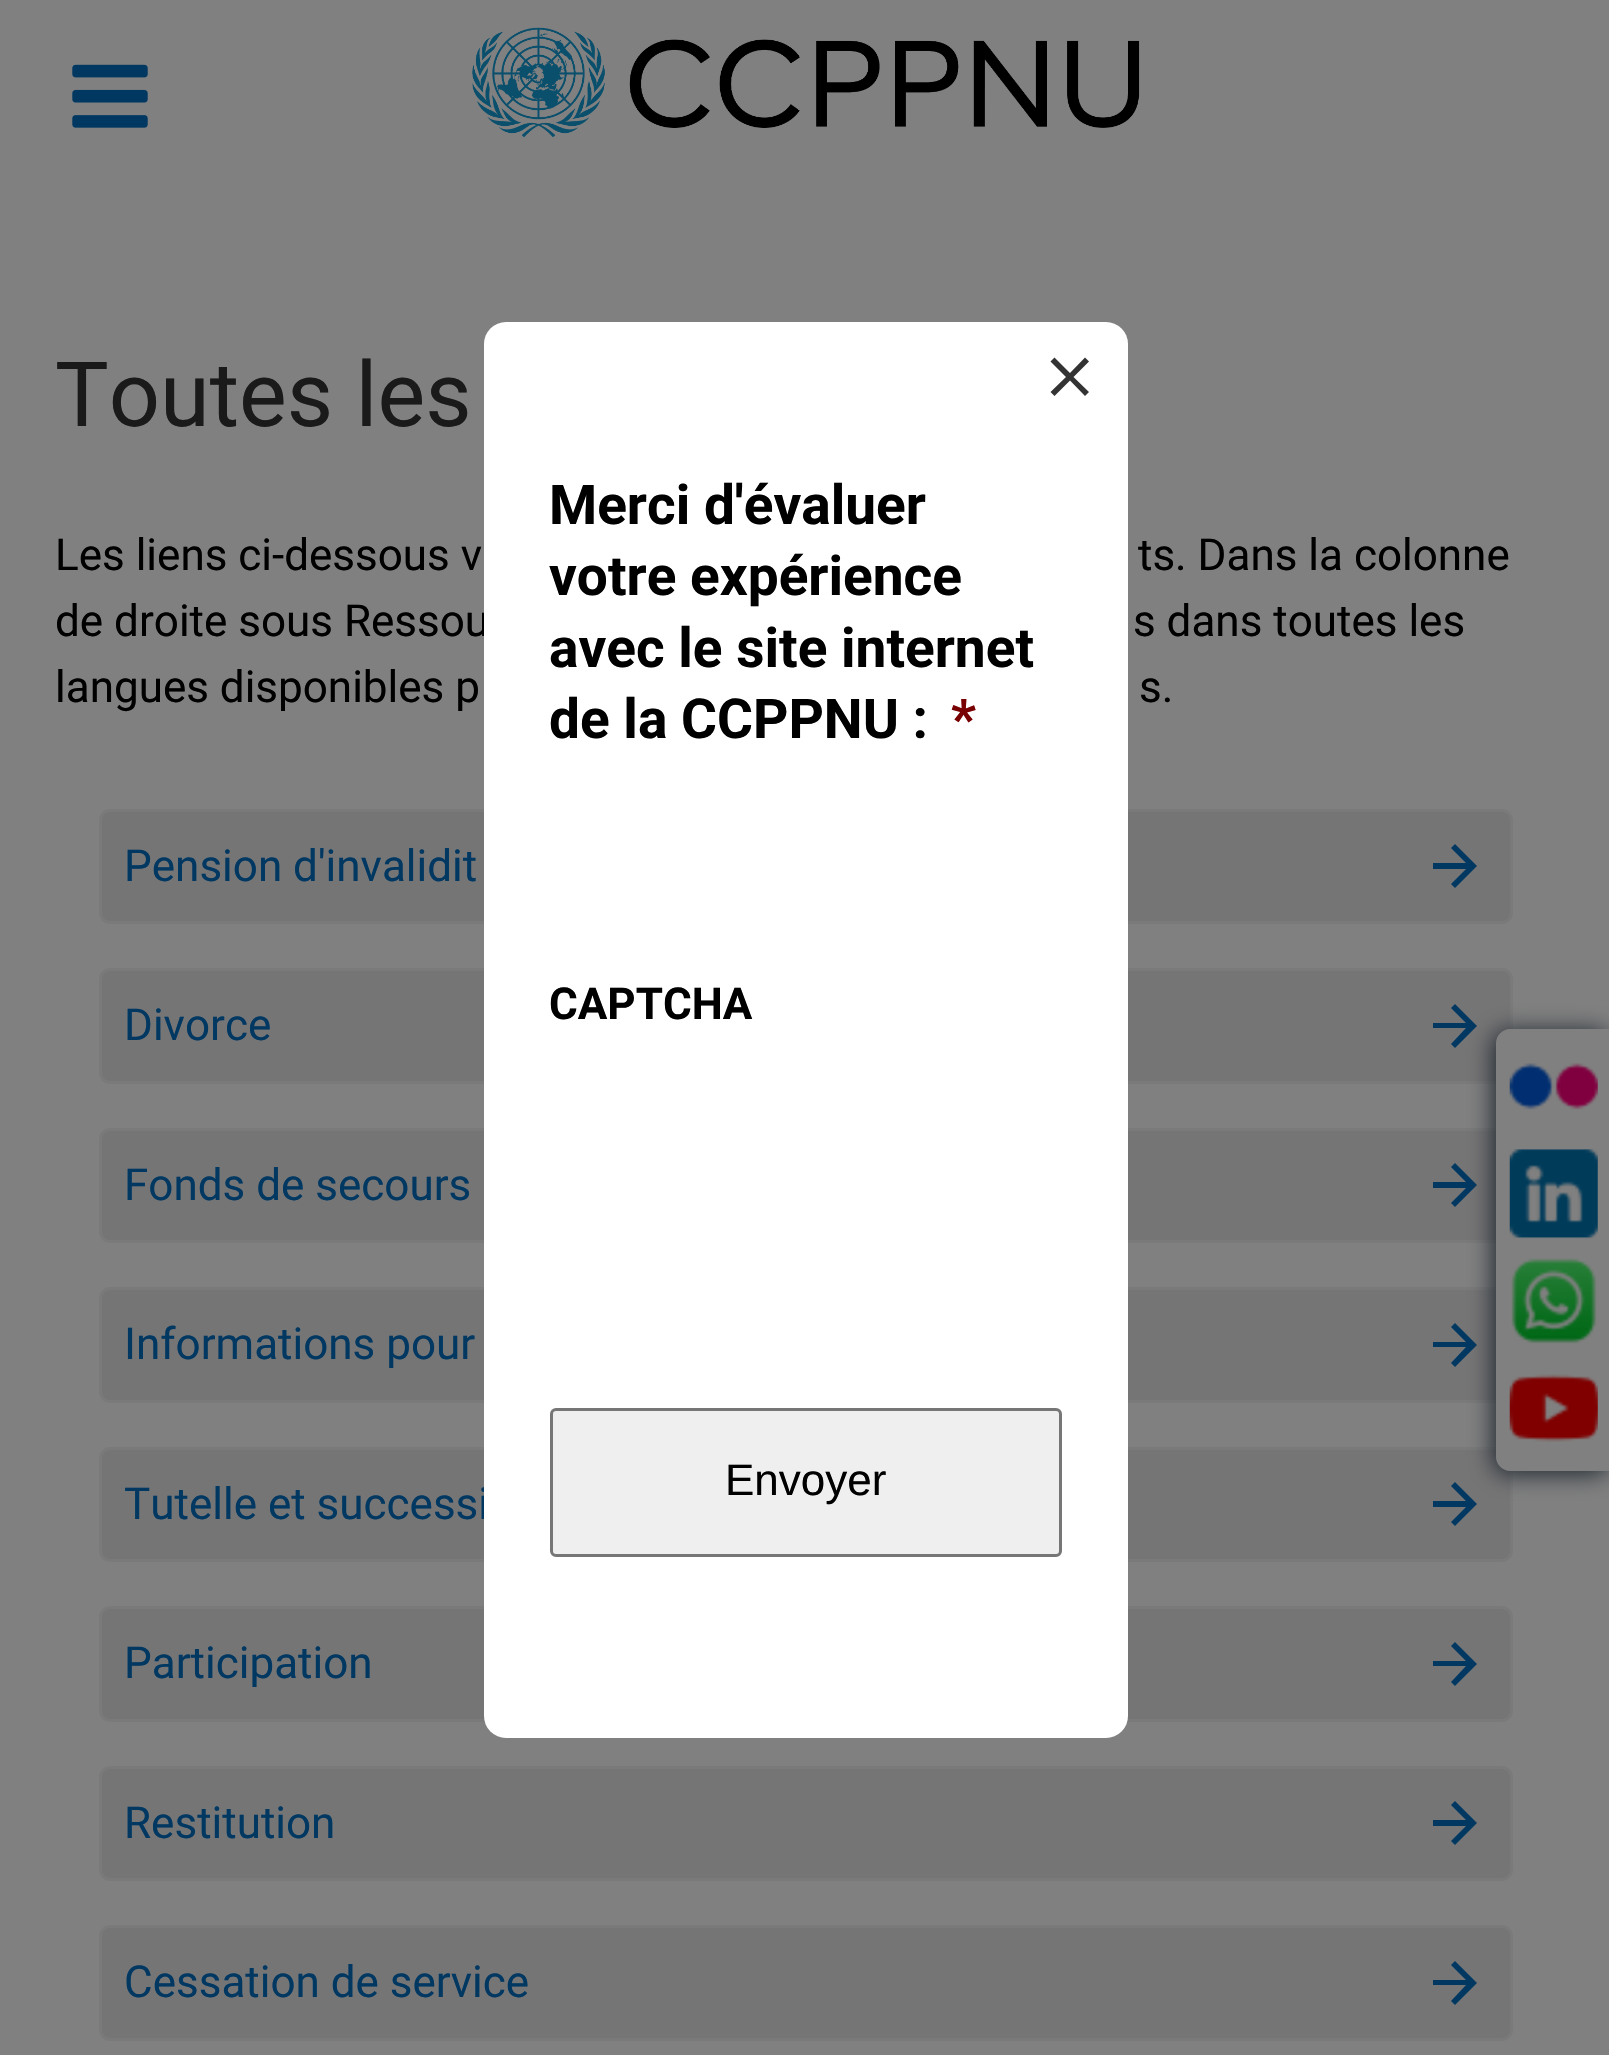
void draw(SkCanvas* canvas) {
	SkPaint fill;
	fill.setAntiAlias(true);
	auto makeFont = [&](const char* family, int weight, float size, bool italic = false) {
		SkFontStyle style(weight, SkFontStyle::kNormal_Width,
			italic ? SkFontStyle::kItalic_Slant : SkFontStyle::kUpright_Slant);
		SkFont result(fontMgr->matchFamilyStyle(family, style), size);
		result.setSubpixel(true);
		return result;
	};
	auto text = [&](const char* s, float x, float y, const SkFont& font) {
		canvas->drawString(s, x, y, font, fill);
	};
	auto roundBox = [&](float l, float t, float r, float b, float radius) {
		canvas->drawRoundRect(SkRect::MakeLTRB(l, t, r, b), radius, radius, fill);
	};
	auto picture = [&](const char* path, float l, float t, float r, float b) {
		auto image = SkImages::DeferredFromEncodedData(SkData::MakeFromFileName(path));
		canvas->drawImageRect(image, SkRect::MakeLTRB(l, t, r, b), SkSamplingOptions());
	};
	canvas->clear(0xFF808080);
	picture("image0.png", 72, 64, 148, 128);
	picture("image1.png", 472, 27, 1140, 138);
	fill.setColor(0xFF767576);
	canvas->drawRoundRect(SkRect::MakeLTRB(100.5f, 810.5f, 1511.5f, 922.5f), 9.5f, 9.5f, fill);
	fill.setStyle(SkPaint::kStroke_Style);
	fill.setStrokeWidth(3);
	fill.setColor(0xFF7A7A7A);
	canvas->drawRoundRect(SkRect::MakeLTRB(100.5f, 810.5f, 1511.5f, 922.5f), 9.5f, 9.5f, fill);
	fill.setStyle(SkPaint::kFill_Style);
	fill.setColor(0xFF003862);
	canvas->drawPath(SkPathBuilder().moveTo(1455, 844).lineTo(1451, 848).lineTo(1466, 863).lineTo(1433, 863).lineTo(1433, 869).lineTo(1466, 869).lineTo(1451, 884).lineTo(1455, 888).lineTo(1477, 866).close().detach(), fill);
	fill.setColor(0xFF767576);
	canvas->drawRoundRect(SkRect::MakeLTRB(100.5f, 969.5f, 1511.5f, 1082.5f), 9.5f, 9.5f, fill);
	fill.setStyle(SkPaint::kStroke_Style);
	fill.setColor(0xFF7A7A7A);
	canvas->drawRoundRect(SkRect::MakeLTRB(100.5f, 969.5f, 1511.5f, 1082.5f), 9.5f, 9.5f, fill);
	fill.setStyle(SkPaint::kFill_Style);
	fill.setColor(0xFF003862);
	canvas->drawPath(SkPathBuilder().moveTo(1455, 1004).lineTo(1451, 1008).lineTo(1466, 1023).lineTo(1433, 1023).lineTo(1433, 1028).lineTo(1466, 1028).lineTo(1451, 1044).lineTo(1455, 1048).lineTo(1477, 1026).close().detach(), fill);
	fill.setColor(0xFF767576);
	canvas->drawRoundRect(SkRect::MakeLTRB(100.5f, 1129.5f, 1511.5f, 1241.5f), 9.5f, 9.5f, fill);
	fill.setStyle(SkPaint::kStroke_Style);
	fill.setColor(0xFF7A7A7A);
	canvas->drawRoundRect(SkRect::MakeLTRB(100.5f, 1129.5f, 1511.5f, 1241.5f), 9.5f, 9.5f, fill);
	fill.setStyle(SkPaint::kFill_Style);
	fill.setColor(0xFF003862);
	canvas->drawPath(SkPathBuilder().moveTo(1455, 1163).lineTo(1451, 1167).lineTo(1466, 1182).lineTo(1433, 1182).lineTo(1433, 1188).lineTo(1466, 1188).lineTo(1451, 1203).lineTo(1455, 1207).lineTo(1477, 1185).close().detach(), fill);
	fill.setColor(0xFF767576);
	canvas->drawRoundRect(SkRect::MakeLTRB(100.5f, 1288.5f, 1511.5f, 1401.5f), 9.5f, 9.5f, fill);
	fill.setStyle(SkPaint::kStroke_Style);
	fill.setColor(0xFF7A7A7A);
	canvas->drawRoundRect(SkRect::MakeLTRB(100.5f, 1288.5f, 1511.5f, 1401.5f), 9.5f, 9.5f, fill);
	fill.setStyle(SkPaint::kFill_Style);
	fill.setColor(0xFF003862);
	canvas->drawPath(SkPathBuilder().moveTo(1455, 1323).lineTo(1451, 1327).lineTo(1466, 1342).lineTo(1433, 1342).lineTo(1433, 1347).lineTo(1466, 1347).lineTo(1451, 1363).lineTo(1455, 1367).lineTo(1477, 1345).close().detach(), fill);
	fill.setColor(0xFF767576);
	canvas->drawRoundRect(SkRect::MakeLTRB(100.5f, 1448.5f, 1511.5f, 1560.5f), 9.5f, 9.5f, fill);
	fill.setStyle(SkPaint::kStroke_Style);
	fill.setColor(0xFF7A7A7A);
	canvas->drawRoundRect(SkRect::MakeLTRB(100.5f, 1448.5f, 1511.5f, 1560.5f), 9.5f, 9.5f, fill);
	fill.setStyle(SkPaint::kFill_Style);
	fill.setColor(0xFF003862);
	canvas->drawPath(SkPathBuilder().moveTo(1455, 1482).lineTo(1451, 1486).lineTo(1466, 1501).lineTo(1433, 1501).lineTo(1433, 1507).lineTo(1466, 1507).lineTo(1451, 1522).lineTo(1455, 1526).lineTo(1477, 1504).close().detach(), fill);
	fill.setColor(0xFF767576);
	canvas->drawRoundRect(SkRect::MakeLTRB(100.5f, 1607.5f, 1511.5f, 1720.5f), 9.5f, 9.5f, fill);
	fill.setStyle(SkPaint::kStroke_Style);
	fill.setColor(0xFF7A7A7A);
	canvas->drawRoundRect(SkRect::MakeLTRB(100.5f, 1607.5f, 1511.5f, 1720.5f), 9.5f, 9.5f, fill);
	fill.setStyle(SkPaint::kFill_Style);
	fill.setColor(0xFF003862);
	canvas->drawPath(SkPathBuilder().moveTo(1455, 1642).lineTo(1451, 1646).lineTo(1466, 1661).lineTo(1433, 1661).lineTo(1433, 1666).lineTo(1466, 1666).lineTo(1451, 1682).lineTo(1455, 1686).lineTo(1477, 1664).close().detach(), fill);
	fill.setColor(0xFF767576);
	canvas->drawRoundRect(SkRect::MakeLTRB(100.5f, 1767.5f, 1511.5f, 1879.5f), 9.5f, 9.5f, fill);
	fill.setStyle(SkPaint::kStroke_Style);
	fill.setColor(0xFF7A7A7A);
	canvas->drawRoundRect(SkRect::MakeLTRB(100.5f, 1767.5f, 1511.5f, 1879.5f), 9.5f, 9.5f, fill);
	fill.setStyle(SkPaint::kFill_Style);
	fill.setColor(0xFF003862);
	canvas->drawPath(SkPathBuilder().moveTo(1455, 1801).lineTo(1451, 1805).lineTo(1466, 1820).lineTo(1433, 1820).lineTo(1433, 1826).lineTo(1466, 1826).lineTo(1451, 1841).lineTo(1455, 1845).lineTo(1477, 1823).close().detach(), fill);
	fill.setColor(0xFF767576);
	canvas->drawRoundRect(SkRect::MakeLTRB(100.5f, 1926.5f, 1511.5f, 2039.5f), 9.5f, 9.5f, fill);
	fill.setStyle(SkPaint::kStroke_Style);
	fill.setColor(0xFF7A7A7A);
	canvas->drawRoundRect(SkRect::MakeLTRB(100.5f, 1926.5f, 1511.5f, 2039.5f), 9.5f, 9.5f, fill);
	fill.setStyle(SkPaint::kFill_Style);
	fill.setColor(0xFF003862);
	canvas->drawPath(SkPathBuilder().moveTo(1455, 1961).lineTo(1451, 1965).lineTo(1466, 1980).lineTo(1433, 1980).lineTo(1433, 1985).lineTo(1466, 1985).lineTo(1451, 2001).lineTo(1455, 2005).lineTo(1477, 1983).close().detach(), fill);
	fill.setColor(0xFF1C252D);
	fill.setMaskFilter(SkMaskFilter::MakeBlur(kNormal_SkBlurStyle, 12.5f));
	canvas->drawRoundRect(SkRect::MakeLTRB(1493, 1031, 1609, 1474), 14, 14, fill);
	fill.setMaskFilter(nullptr);
	fill.setColor(0xFF808080);
	canvas->drawPath(SkPathBuilder().moveTo(1510, 1029).lineTo(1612, 1029).lineTo(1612, 1471).lineTo(1510, 1471).cubicTo(1502.5f, 1471, 1496, 1464.5f, 1496, 1457).lineTo(1496, 1043).cubicTo(1496, 1035.5f, 1502.5f, 1029, 1510, 1029).close().detach(), fill);
	picture("image2.png", 1509, 1063, 1598, 1110);
	picture("image3.png", 1509, 1149, 1598, 1239);
	picture("image4.png", 1511, 1258, 1597, 1344);
	picture("image5.png", 1509, 1374, 1598, 1442);
	auto font1 = makeFont("Roboto", 400, 90);
	fill.setColor(0xFF1A1A1A);
	text("Toutes les", 55, 426, font1);
	auto font2 = makeFont("Roboto", 400, 44);
	fill.setColor(0xFF000000);
	text("Les liens ci-dessous v", 55, 570, font2);
	text("ts. Dans la colonne", 1138, 570, font2);
	text("de droite sous Ressou", 55, 636, font2);
	text("s dans toutes les", 1133, 636, font2);
	text("langues disponibles p", 55, 702, font2);
	text("s.", 1139, 702, font2);
	fill.setColor(0xFF003862);
	text("Pension d'invalidit", 124, 881, font2);
	text("Divorce", 124, 1040, font2);
	text("Fonds de secours", 124, 1200, font2);
	text("Informations pour", 124, 1359, font2);
	text("Tutelle et successi", 124, 1519, font2);
	text("Participation", 124, 1678, font2);
	text("Restitution", 124, 1838, font2);
	text("Cessation de service", 124, 1997, font2);
	fill.setColor(0xFFFFFFFF);
	roundBox(484, 322, 1128, 1738, 22);
	fill.setColor(0xFF333333);
	canvas->drawPath(SkPathBuilder().moveTo(1089, 361.5f).lineTo(1085, 357.5f).lineTo(1070, 373).lineTo(1054.5f, 357.5f).lineTo(1050.5f, 361.5f).lineTo(1066, 377).lineTo(1050.5f, 392).lineTo(1054.5f, 396).lineTo(1070, 380.5f).lineTo(1085, 396).lineTo(1089, 392).lineTo(1073.5f, 377).close().detach(), fill);
	auto font3 = makeFont("Roboto", 700, 55);
	fill.setColor(0xFF000000);
	text("Merci d'évaluer", 549, 524, font3);
	text("votre expérience", 549, 595, font3);
	text("avec le site internet", 549, 667, font3);
	text("de la CCPPNU :", 549, 738, font3);
	fill.setColor(0xFF790000);
	text("*", 951, 738, font3);
	auto font4 = makeFont("Roboto", 700, 44);
	fill.setColor(0xFF000000);
	text("CAPTCHA", 549, 1019, font4);
	fill.setColor(0xFFEFEFEF);
	canvas->drawRoundRect(SkRect::MakeLTRB(551.5f, 1409.5f, 1060.5f, 1555.5f), 4.5f, 4.5f, fill);
	fill.setStyle(SkPaint::kStroke_Style);
	fill.setColor(0xFF767676);
	canvas->drawRoundRect(SkRect::MakeLTRB(551.5f, 1409.5f, 1060.5f, 1555.5f), 4.5f, 4.5f, fill);
	auto font5 = makeFont("Liberation Sans", 400, 44);
	fill.setStyle(SkPaint::kFill_Style);
	fill.setColor(0xFF000000);
	text("Envoyer", 725, 1495, font5);
}
